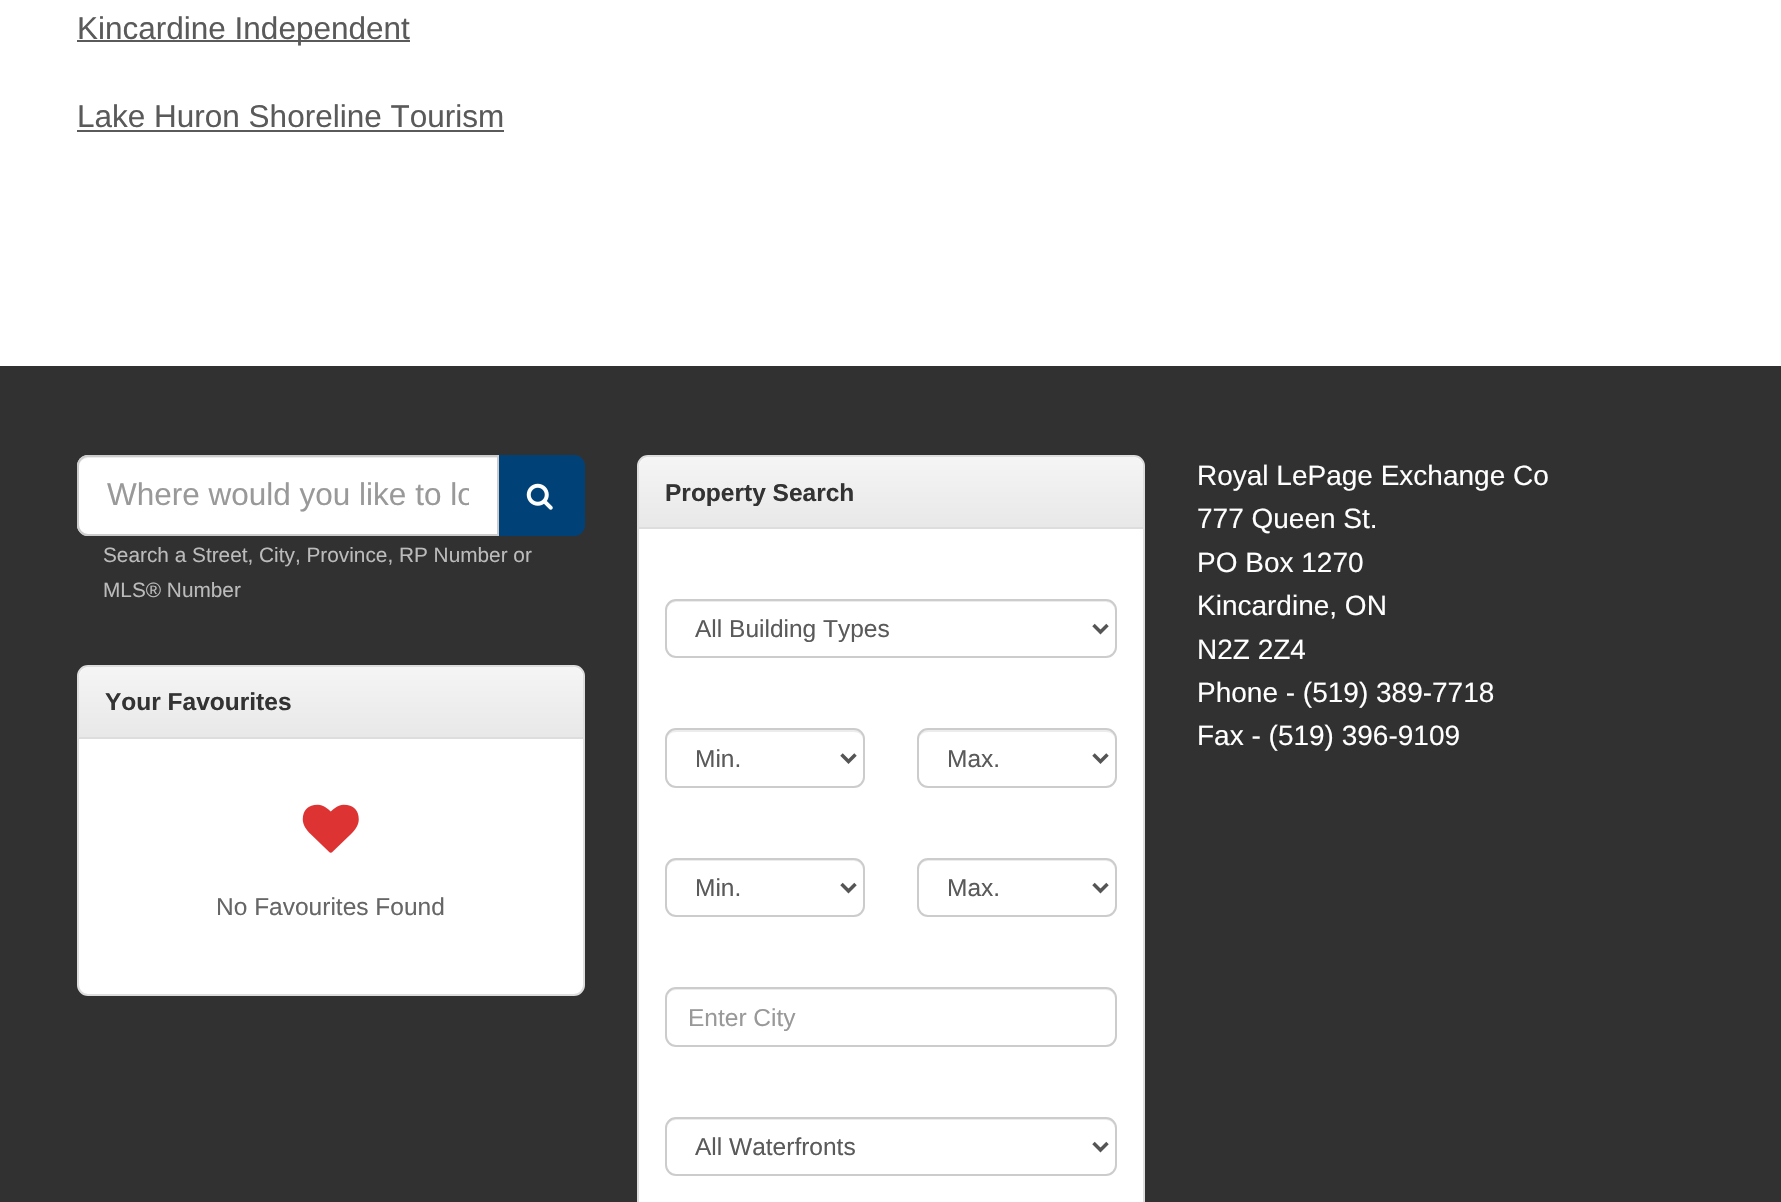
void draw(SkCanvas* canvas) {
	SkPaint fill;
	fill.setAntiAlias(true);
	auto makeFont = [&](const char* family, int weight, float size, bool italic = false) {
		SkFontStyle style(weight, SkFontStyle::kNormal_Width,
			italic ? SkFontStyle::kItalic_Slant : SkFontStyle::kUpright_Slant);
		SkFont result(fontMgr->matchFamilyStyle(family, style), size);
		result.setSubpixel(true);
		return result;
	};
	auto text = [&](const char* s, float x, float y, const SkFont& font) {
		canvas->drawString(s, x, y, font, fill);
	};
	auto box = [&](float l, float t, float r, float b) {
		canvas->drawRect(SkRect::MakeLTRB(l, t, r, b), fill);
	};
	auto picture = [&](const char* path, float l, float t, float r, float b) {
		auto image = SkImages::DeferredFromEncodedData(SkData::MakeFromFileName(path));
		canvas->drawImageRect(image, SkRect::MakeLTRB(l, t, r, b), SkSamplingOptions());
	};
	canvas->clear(0xFFFFFFFF);
	fill.setColor(0xFF5A5A5A);
	box(77, 40, 410, 42);
	box(77, 130, 504, 132);
	fill.setColor(0xFF313131);
	box(0, 366, 1781, 1202);
	fill.setColor(0xFF004177);
	canvas->drawPath(SkPathBuilder().moveTo(498, 456).lineTo(574, 456).cubicTo(579.5f, 456, 584, 460.5f, 584, 466).lineTo(584, 525).cubicTo(584, 530.5f, 579.5f, 535, 574, 535).lineTo(498, 535).close().detach(), fill);
	fill.setStyle(SkPaint::kStroke_Style);
	fill.setStrokeWidth(2);
	canvas->drawPath(SkPathBuilder().moveTo(498, 456).lineTo(574, 456).cubicTo(579.5f, 456, 584, 460.5f, 584, 466).lineTo(584, 525).cubicTo(584, 530.5f, 579.5f, 535, 574, 535).lineTo(498, 535).close().detach(), fill);
	fill.setStyle(SkPaint::kFill_Style);
	fill.setColor(0xFFFFFFFF);
	canvas->drawPath(SkPathBuilder().moveTo(88, 455).lineTo(499, 455).lineTo(499, 536).lineTo(88, 536).cubicTo(82, 536, 77, 531, 77, 525).lineTo(77, 466).cubicTo(77, 460, 82, 455, 88, 455).close().detach(), fill);
	fill.setColor(0xFFECECEC);
	canvas->drawPath(SkPathBuilder().moveTo(88, 458).lineTo(497, 458).lineTo(497, 457).lineTo(88, 457).cubicTo(82, 457, 79, 462, 79, 467).cubicTo(79, 462, 83, 458, 88, 458).close().detach(), fill);
	fill.setStyle(SkPaint::kStroke_Style);
	fill.setColor(0xFFCCCCCC);
	canvas->drawPath(SkPathBuilder().moveTo(88, 456).lineTo(498, 456).lineTo(498, 535).lineTo(88, 535).cubicTo(82.5f, 535, 78, 530.5f, 78, 525).lineTo(78, 466).cubicTo(78, 460.5f, 82.5f, 456, 88, 456).close().detach(), fill);
	picture("image0.png", 526, 483, 553, 510);
	fill.setStyle(SkPaint::kFill_Style);
	fill.setColor(0xFFFFFFFF);
	canvas->drawRoundRect(SkRect::MakeLTRB(78, 666, 584, 995), 10, 10, fill);
	fill.setStyle(SkPaint::kStroke_Style);
	fill.setColor(0xFFDDDDDD);
	canvas->drawRoundRect(SkRect::MakeLTRB(78, 666, 584, 995), 10, 10, fill);
	fill.setStyle(SkPaint::kFill_Style);
	{
		const SkColor colors[] = {0xFFF5F5F5, 0xFFE8E8E8};
		const float stops[] = {0, 1};
		const SkPoint ends[] = {{331, 667}, {331, 737}};
		fill.setShader(SkGradientShader::MakeLinear(ends, colors, stops, 2, SkTileMode::kClamp));
		fill.setAlpha(255);
	}
	canvas->drawPath(SkPathBuilder().moveTo(90, 667).lineTo(572, 667).cubicTo(578, 667, 583, 672, 583, 678).lineTo(583, 737).lineTo(79, 737).lineTo(79, 678).cubicTo(79, 672, 84, 667, 90, 667).close().detach(), fill);
	fill.setShader(nullptr);
	fill.setColor(0xFFDDDDDD);
	box(79, 737, 583, 739);
	picture("image1.png", 302, 804, 359, 853);
	fill.setColor(0xFFFFFFFF);
	canvas->drawRoundRect(SkRect::MakeLTRB(638, 456, 1144, 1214), 10, 10, fill);
	fill.setStyle(SkPaint::kStroke_Style);
	fill.setColor(0xFFDDDDDD);
	canvas->drawRoundRect(SkRect::MakeLTRB(638, 456, 1144, 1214), 10, 10, fill);
	fill.setStyle(SkPaint::kFill_Style);
	{
		const SkColor colors[] = {0xFFF5F5F5, 0xFFE8E8E8};
		const float stops[] = {0, 1};
		const SkPoint ends[] = {{891, 457}, {891, 527}};
		fill.setShader(SkGradientShader::MakeLinear(ends, colors, stops, 2, SkTileMode::kClamp));
		fill.setAlpha(255);
	}
	canvas->drawPath(SkPathBuilder().moveTo(650, 457).lineTo(1132, 457).cubicTo(1138, 457, 1143, 462, 1143, 468).lineTo(1143, 527).lineTo(639, 527).lineTo(639, 468).cubicTo(639, 462, 644, 457, 650, 457).close().detach(), fill);
	fill.setShader(nullptr);
	fill.setColor(0xFFDDDDDD);
	box(639, 527, 1143, 529);
	fill.setColor(0xFFECECEC);
	canvas->drawPath(SkPathBuilder().moveTo(676, 602).lineTo(1106, 602).cubicTo(1111, 602, 1115, 606, 1115, 611).lineTo(1115, 609).cubicTo(1115, 604, 1111, 600, 1106, 600).lineTo(676, 600).cubicTo(671, 600, 667, 604, 667, 609).lineTo(667, 611).cubicTo(667, 606, 671, 602, 676, 602).close().detach(), fill);
	fill.setStyle(SkPaint::kStroke_Style);
	fill.setColor(0xFFCCCCCC);
	canvas->drawRoundRect(SkRect::MakeLTRB(666, 600, 1116, 657), 10, 10, fill);
	fill.setStrokeWidth(3.5f);
	fill.setColor(0xFF555555);
	canvas->drawPath(SkPathBuilder().moveTo(1093.5f, 625).lineTo(1100.5f, 632).lineTo(1107.5f, 625).detach(), fill);
	fill.setStyle(SkPaint::kFill_Style);
	fill.setColor(0xFFECECEC);
	canvas->drawPath(SkPathBuilder().moveTo(676, 732).lineTo(854, 732).cubicTo(859, 732, 863, 735, 863, 740).lineTo(863, 739).cubicTo(863, 734, 859, 730, 854, 730).lineTo(676, 730).cubicTo(671, 730, 667, 734, 667, 739).lineTo(667, 740).cubicTo(667, 735, 671, 732, 676, 732).close().detach(), fill);
	fill.setStyle(SkPaint::kStroke_Style);
	fill.setStrokeWidth(2);
	fill.setColor(0xFFCCCCCC);
	canvas->drawRoundRect(SkRect::MakeLTRB(666, 729, 864, 787), 10, 10, fill);
	fill.setStrokeWidth(3.5f);
	fill.setColor(0xFF555555);
	canvas->drawPath(SkPathBuilder().moveTo(841.5f, 754.5f).lineTo(848.5f, 761.5f).lineTo(855.5f, 754.5f).detach(), fill);
	fill.setStyle(SkPaint::kFill_Style);
	fill.setColor(0xFFECECEC);
	canvas->drawPath(SkPathBuilder().moveTo(928, 732).lineTo(1106, 732).cubicTo(1111, 732, 1115, 735, 1115, 740).lineTo(1115, 739).cubicTo(1115, 734, 1111, 730, 1106, 730).lineTo(928, 730).cubicTo(923, 730, 919, 734, 919, 739).lineTo(919, 740).cubicTo(919, 735, 923, 732, 928, 732).close().detach(), fill);
	fill.setStyle(SkPaint::kStroke_Style);
	fill.setStrokeWidth(2);
	fill.setColor(0xFFCCCCCC);
	canvas->drawRoundRect(SkRect::MakeLTRB(918, 729, 1116, 787), 10, 10, fill);
	fill.setStrokeWidth(3.5f);
	fill.setColor(0xFF555555);
	canvas->drawPath(SkPathBuilder().moveTo(1093.5f, 754.5f).lineTo(1100.5f, 761.5f).lineTo(1107.5f, 754.5f).detach(), fill);
	fill.setStyle(SkPaint::kFill_Style);
	fill.setColor(0xFFECECEC);
	canvas->drawPath(SkPathBuilder().moveTo(676, 861).lineTo(854, 861).cubicTo(859, 861, 863, 865, 863, 870).lineTo(863, 868).cubicTo(863, 863, 859, 859, 854, 859).lineTo(676, 859).cubicTo(671, 859, 667, 863, 667, 868).lineTo(667, 870).cubicTo(667, 865, 671, 861, 676, 861).close().detach(), fill);
	fill.setStyle(SkPaint::kStroke_Style);
	fill.setStrokeWidth(2);
	fill.setColor(0xFFCCCCCC);
	canvas->drawRoundRect(SkRect::MakeLTRB(666, 859, 864, 916), 10, 10, fill);
	fill.setStrokeWidth(3.5f);
	fill.setColor(0xFF555555);
	canvas->drawPath(SkPathBuilder().moveTo(841.5f, 884).lineTo(848.5f, 891).lineTo(855.5f, 884).detach(), fill);
	fill.setStyle(SkPaint::kFill_Style);
	fill.setColor(0xFFECECEC);
	canvas->drawPath(SkPathBuilder().moveTo(928, 861).lineTo(1106, 861).cubicTo(1111, 861, 1115, 865, 1115, 870).lineTo(1115, 868).cubicTo(1115, 863, 1111, 859, 1106, 859).lineTo(928, 859).cubicTo(923, 859, 919, 863, 919, 868).lineTo(919, 870).cubicTo(919, 865, 923, 861, 928, 861).close().detach(), fill);
	fill.setStyle(SkPaint::kStroke_Style);
	fill.setStrokeWidth(2);
	fill.setColor(0xFFCCCCCC);
	canvas->drawRoundRect(SkRect::MakeLTRB(918, 859, 1116, 916), 10, 10, fill);
	fill.setStrokeWidth(3.5f);
	fill.setColor(0xFF555555);
	canvas->drawPath(SkPathBuilder().moveTo(1093.5f, 884).lineTo(1100.5f, 891).lineTo(1107.5f, 884).detach(), fill);
	fill.setStyle(SkPaint::kFill_Style);
	fill.setColor(0xFFECECEC);
	canvas->drawPath(SkPathBuilder().moveTo(676, 990).lineTo(1106, 990).cubicTo(1111, 990, 1115, 994, 1115, 999).lineTo(1115, 998).cubicTo(1115, 993, 1111, 989, 1106, 989).lineTo(676, 989).cubicTo(671, 989, 667, 993, 667, 998).lineTo(667, 999).cubicTo(667, 994, 671, 990, 676, 990).close().detach(), fill);
	fill.setStyle(SkPaint::kStroke_Style);
	fill.setStrokeWidth(2);
	fill.setColor(0xFFCCCCCC);
	canvas->drawRoundRect(SkRect::MakeLTRB(666, 988, 1116, 1046), 10, 10, fill);
	fill.setStyle(SkPaint::kFill_Style);
	fill.setColor(0xFFECECEC);
	canvas->drawPath(SkPathBuilder().moveTo(676, 1120).lineTo(1106, 1120).cubicTo(1111, 1120, 1115, 1124, 1115, 1129).lineTo(1115, 1127).cubicTo(1115, 1122, 1111, 1118, 1106, 1118).lineTo(676, 1118).cubicTo(671, 1118, 667, 1122, 667, 1127).lineTo(667, 1129).cubicTo(667, 1124, 671, 1120, 676, 1120).close().detach(), fill);
	fill.setStyle(SkPaint::kStroke_Style);
	fill.setColor(0xFFCCCCCC);
	canvas->drawRoundRect(SkRect::MakeLTRB(666, 1118, 1116, 1175), 10, 10, fill);
	fill.setStrokeWidth(3.5f);
	fill.setColor(0xFF555555);
	canvas->drawPath(SkPathBuilder().moveTo(1093.5f, 1143).lineTo(1100.5f, 1150).lineTo(1107.5f, 1143).detach(), fill);
	auto font1 = makeFont("Liberation Sans", 400, 31.5f);
	fill.setStyle(SkPaint::kFill_Style);
	fill.setColor(0xFF5A5A5A);
	text("Kincardine Independent", 77, 39, font1);
	text("Lake Huron Shoreline Tourism", 77, 127, font1);
	canvas->save();
	canvas->clipRect(SkRect::MakeLTRB(107, 478, 469, 515));
	fill.setColor(0xFF999999);
	text("Where would you like to lo", 107, 505, font1);
	canvas->restore();
	auto font2 = makeFont("Liberation Sans", 400, 20.8f);
	fill.setColor(0xFFBBBBBB);
	text("Search a Street, City, Province, RP Number or", 103, 562, font2);
	text("MLS® Number", 103, 597, font2);
	auto font3 = makeFont("Liberation Sans", 700, 24.5f);
	fill.setColor(0xFF333333);
	text("Your Favourites", 105, 710, font3);
	auto font4 = makeFont("Liberation Sans", 400, 24.5f);
	fill.setColor(0xFF666666);
	text("No Favourites Found", 216, 915, font4);
	fill.setColor(0xFF333333);
	text("Property Search", 665, 501, font3);
	fill.setColor(0xFF5A5A5A);
	text("All Building Types", 695, 637, font4);
	text("Min.", 695, 767, font4);
	text("Max.", 947, 767, font4);
	text("Min.", 695, 896, font4);
	text("Max.", 947, 896, font4);
	fill.setColor(0xFF999999);
	text("Enter City", 688, 1026, font4);
	fill.setColor(0xFF5A5A5A);
	text("All Waterfronts", 695, 1155, font4);
	auto font5 = makeFont("Liberation Sans", 400, 28);
	fill.setColor(0xFFFFFFFF);
	text("Royal LePage Exchange Co", 1197, 485, font5);
	text("777 Queen St.", 1197, 528, font5);
	text("PO Box 1270", 1197, 572, font5);
	text("Kincardine, ON", 1197, 615, font5);
	text("N2Z 2Z4", 1197, 659, font5);
	text("Phone - (519) 389-7718", 1197, 702, font5);
	text("Fax - (519) 396-9109", 1197, 745, font5);
}
